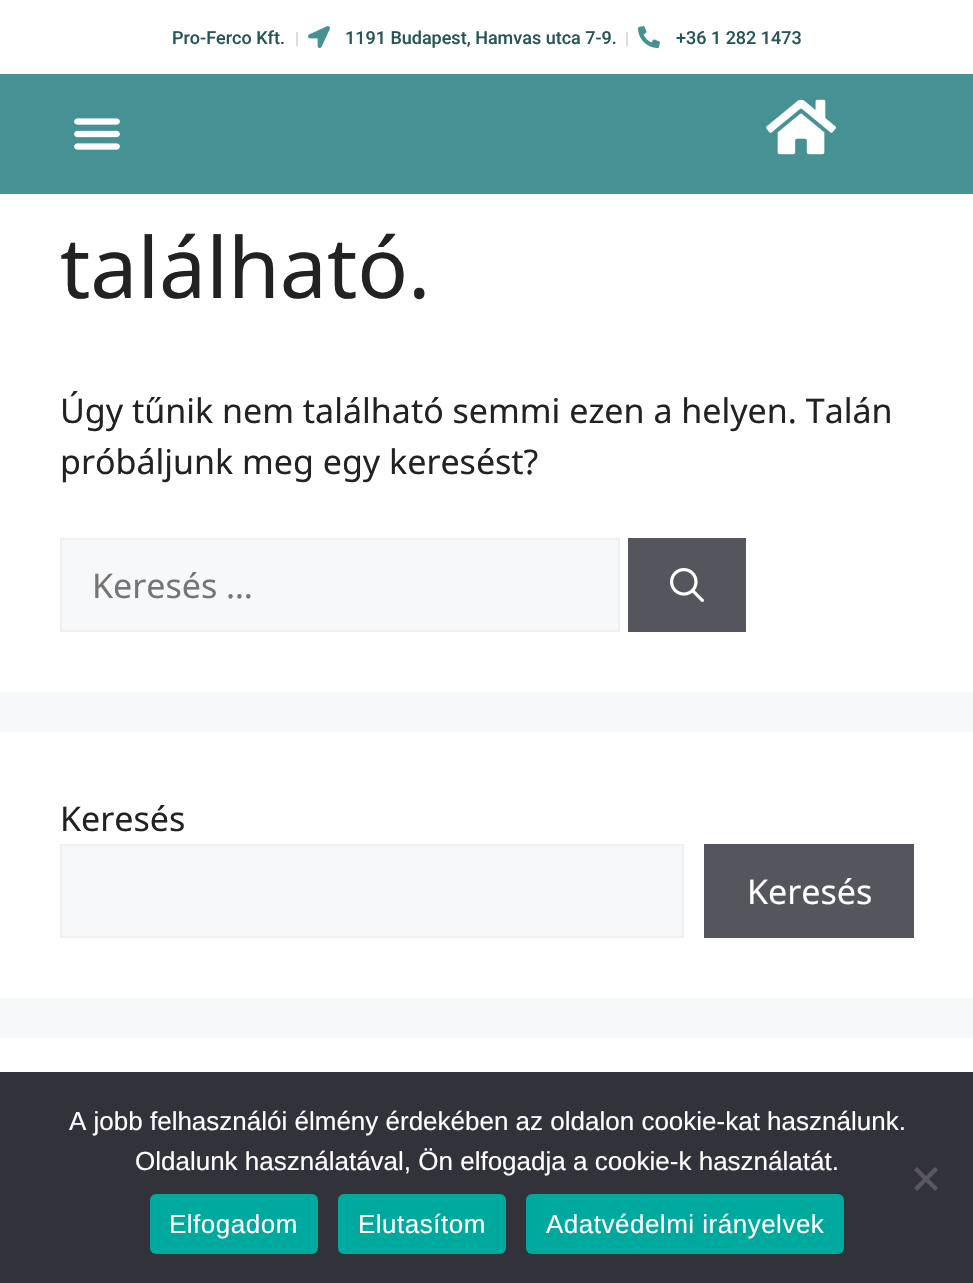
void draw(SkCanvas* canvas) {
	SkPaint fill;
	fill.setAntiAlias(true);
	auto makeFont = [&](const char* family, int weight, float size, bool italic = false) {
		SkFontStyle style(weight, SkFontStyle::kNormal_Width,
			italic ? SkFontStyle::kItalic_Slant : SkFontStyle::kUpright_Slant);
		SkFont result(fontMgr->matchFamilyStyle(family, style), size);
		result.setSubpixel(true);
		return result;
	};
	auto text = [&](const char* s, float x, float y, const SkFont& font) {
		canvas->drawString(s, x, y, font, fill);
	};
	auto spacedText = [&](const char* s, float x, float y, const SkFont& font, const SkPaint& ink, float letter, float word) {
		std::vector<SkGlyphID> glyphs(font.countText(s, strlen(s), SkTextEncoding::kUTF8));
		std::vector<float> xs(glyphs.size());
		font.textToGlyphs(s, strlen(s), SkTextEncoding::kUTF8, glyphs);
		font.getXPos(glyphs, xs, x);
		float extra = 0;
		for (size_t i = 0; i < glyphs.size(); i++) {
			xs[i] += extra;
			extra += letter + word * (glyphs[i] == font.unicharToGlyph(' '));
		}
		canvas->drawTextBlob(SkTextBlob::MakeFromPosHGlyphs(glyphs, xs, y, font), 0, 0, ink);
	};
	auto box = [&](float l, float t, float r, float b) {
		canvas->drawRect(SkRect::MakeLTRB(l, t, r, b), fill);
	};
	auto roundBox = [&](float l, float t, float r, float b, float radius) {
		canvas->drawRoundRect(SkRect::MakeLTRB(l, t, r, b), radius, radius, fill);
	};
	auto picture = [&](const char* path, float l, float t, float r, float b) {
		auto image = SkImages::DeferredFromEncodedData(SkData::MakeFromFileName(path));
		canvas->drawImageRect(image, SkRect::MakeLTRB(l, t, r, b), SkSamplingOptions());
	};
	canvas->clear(0xFFF7F8F9);
	fill.setColor(0xFFFFFFFF);
	box(0, 0, 973, 74);
	fill.setColor(0xFFDDDDDD);
	box(296, 32, 298, 46);
	picture("image0.png", 308, 26, 330, 48);
	box(626, 32, 628, 46);
	picture("image1.png", 638, 26, 660, 48);
	fill.setColor(0xFF469193);
	box(0, 74, 973, 194);
	picture("image2.png", 74, 118, 120, 150);
	picture("image3.png", 766, 99, 836, 155);
	fill.setColor(0xFFFFFFFF);
	box(0, 194, 973, 692);
	fill.setColor(0xFFF7F8F9);
	canvas->drawRect(SkRect::MakeLTRB(61, 539, 619, 631), fill);
	fill.setStyle(SkPaint::kStroke_Style);
	fill.setStrokeWidth(2);
	fill.setColor(0xFFF0F0F0);
	canvas->drawRect(SkRect::MakeLTRB(61, 539, 619, 631), fill);
	fill.setStyle(SkPaint::kFill_Style);
	fill.setColor(0xFF55555E);
	box(628, 538, 746, 632);
	picture("image4.png", 670, 568, 704, 602);
	fill.setColor(0xFFFFFFFF);
	box(0, 732, 973, 998);
	fill.setColor(0xFFF7F8F9);
	canvas->drawRect(SkRect::MakeLTRB(61, 845, 683, 937), fill);
	fill.setStyle(SkPaint::kStroke_Style);
	fill.setColor(0xFFF0F0F0);
	canvas->drawRect(SkRect::MakeLTRB(61, 845, 683, 937), fill);
	fill.setStyle(SkPaint::kFill_Style);
	fill.setColor(0xFF55555E);
	box(704, 844, 914, 938);
	fill.setColor(0xFFFFFFFF);
	box(0, 1038, 973, 1072);
	fill.setColor(0xFF32323A);
	box(0, 1072, 973, 1283);
	fill.setColor(0xFF59595D);
	canvas->drawPath(SkPathBuilder().moveTo(935, 1167).lineTo(938, 1170).lineTo(917, 1191).lineTo(914, 1188).close().detach(), fill);
	canvas->drawPath(SkPathBuilder().moveTo(914, 1170).lineTo(917, 1167).lineTo(938, 1188).lineTo(935, 1191).close().detach(), fill);
	fill.setColor(0xFF00A99D);
	roundBox(150, 1194, 318, 1254, 6);
	roundBox(338, 1194, 506, 1254, 6);
	roundBox(526, 1194, 844, 1254, 6);
	auto font1 = makeFont("Roboto", 500, 18);
	fill.setColor(0xFF265556);
	text("Pro-Ferco Kft.", 172, 44, font1);
	text("1191 Budapest, Hamvas utca 7-9.", 345, 44, font1);
	text("+36 1 282 1473", 676, 44, font1);
	auto font2 = makeFont("Noto Sans", 400, 84);
	fill.setColor(0xFF222222);
	text("található.", 60, 298, font2);
	auto font3 = makeFont("Noto Sans", 400, 34);
	text("Úgy tűnik nem található semmi ezen a helyen. Talán", 60, 423, font3);
	text("próbáljunk meg egy keresést?", 60, 474, font3);
	fill.setColor(0xFF757575);
	text("Keresés …", 92, 598, font3);
	fill.setColor(0xFF222222);
	text("Keresés", 60, 831, font3);
	fill.setColor(0xFFFFFFFF);
	text("Keresés", 747, 904, font3);
	auto font4 = makeFont("Liberation Sans", 400, 26);
	text("A jobb felhasználói élmény érdekében az oldalon cookie-kat használunk.", 69, 1130, font4);
	text("Oldalunk használatával, Ön elfogadja a cookie-k használatát.", 135, 1170, font4);
	spacedText("Elfogadom", 169, 1233, font4, fill, 0.5f, 0);
	spacedText("Elutasítom", 358, 1233, font4, fill, 0.5f, 0);
	spacedText("Adatvédelmi irányelvek", 546, 1233, font4, fill, 0.5f, 0);
}
